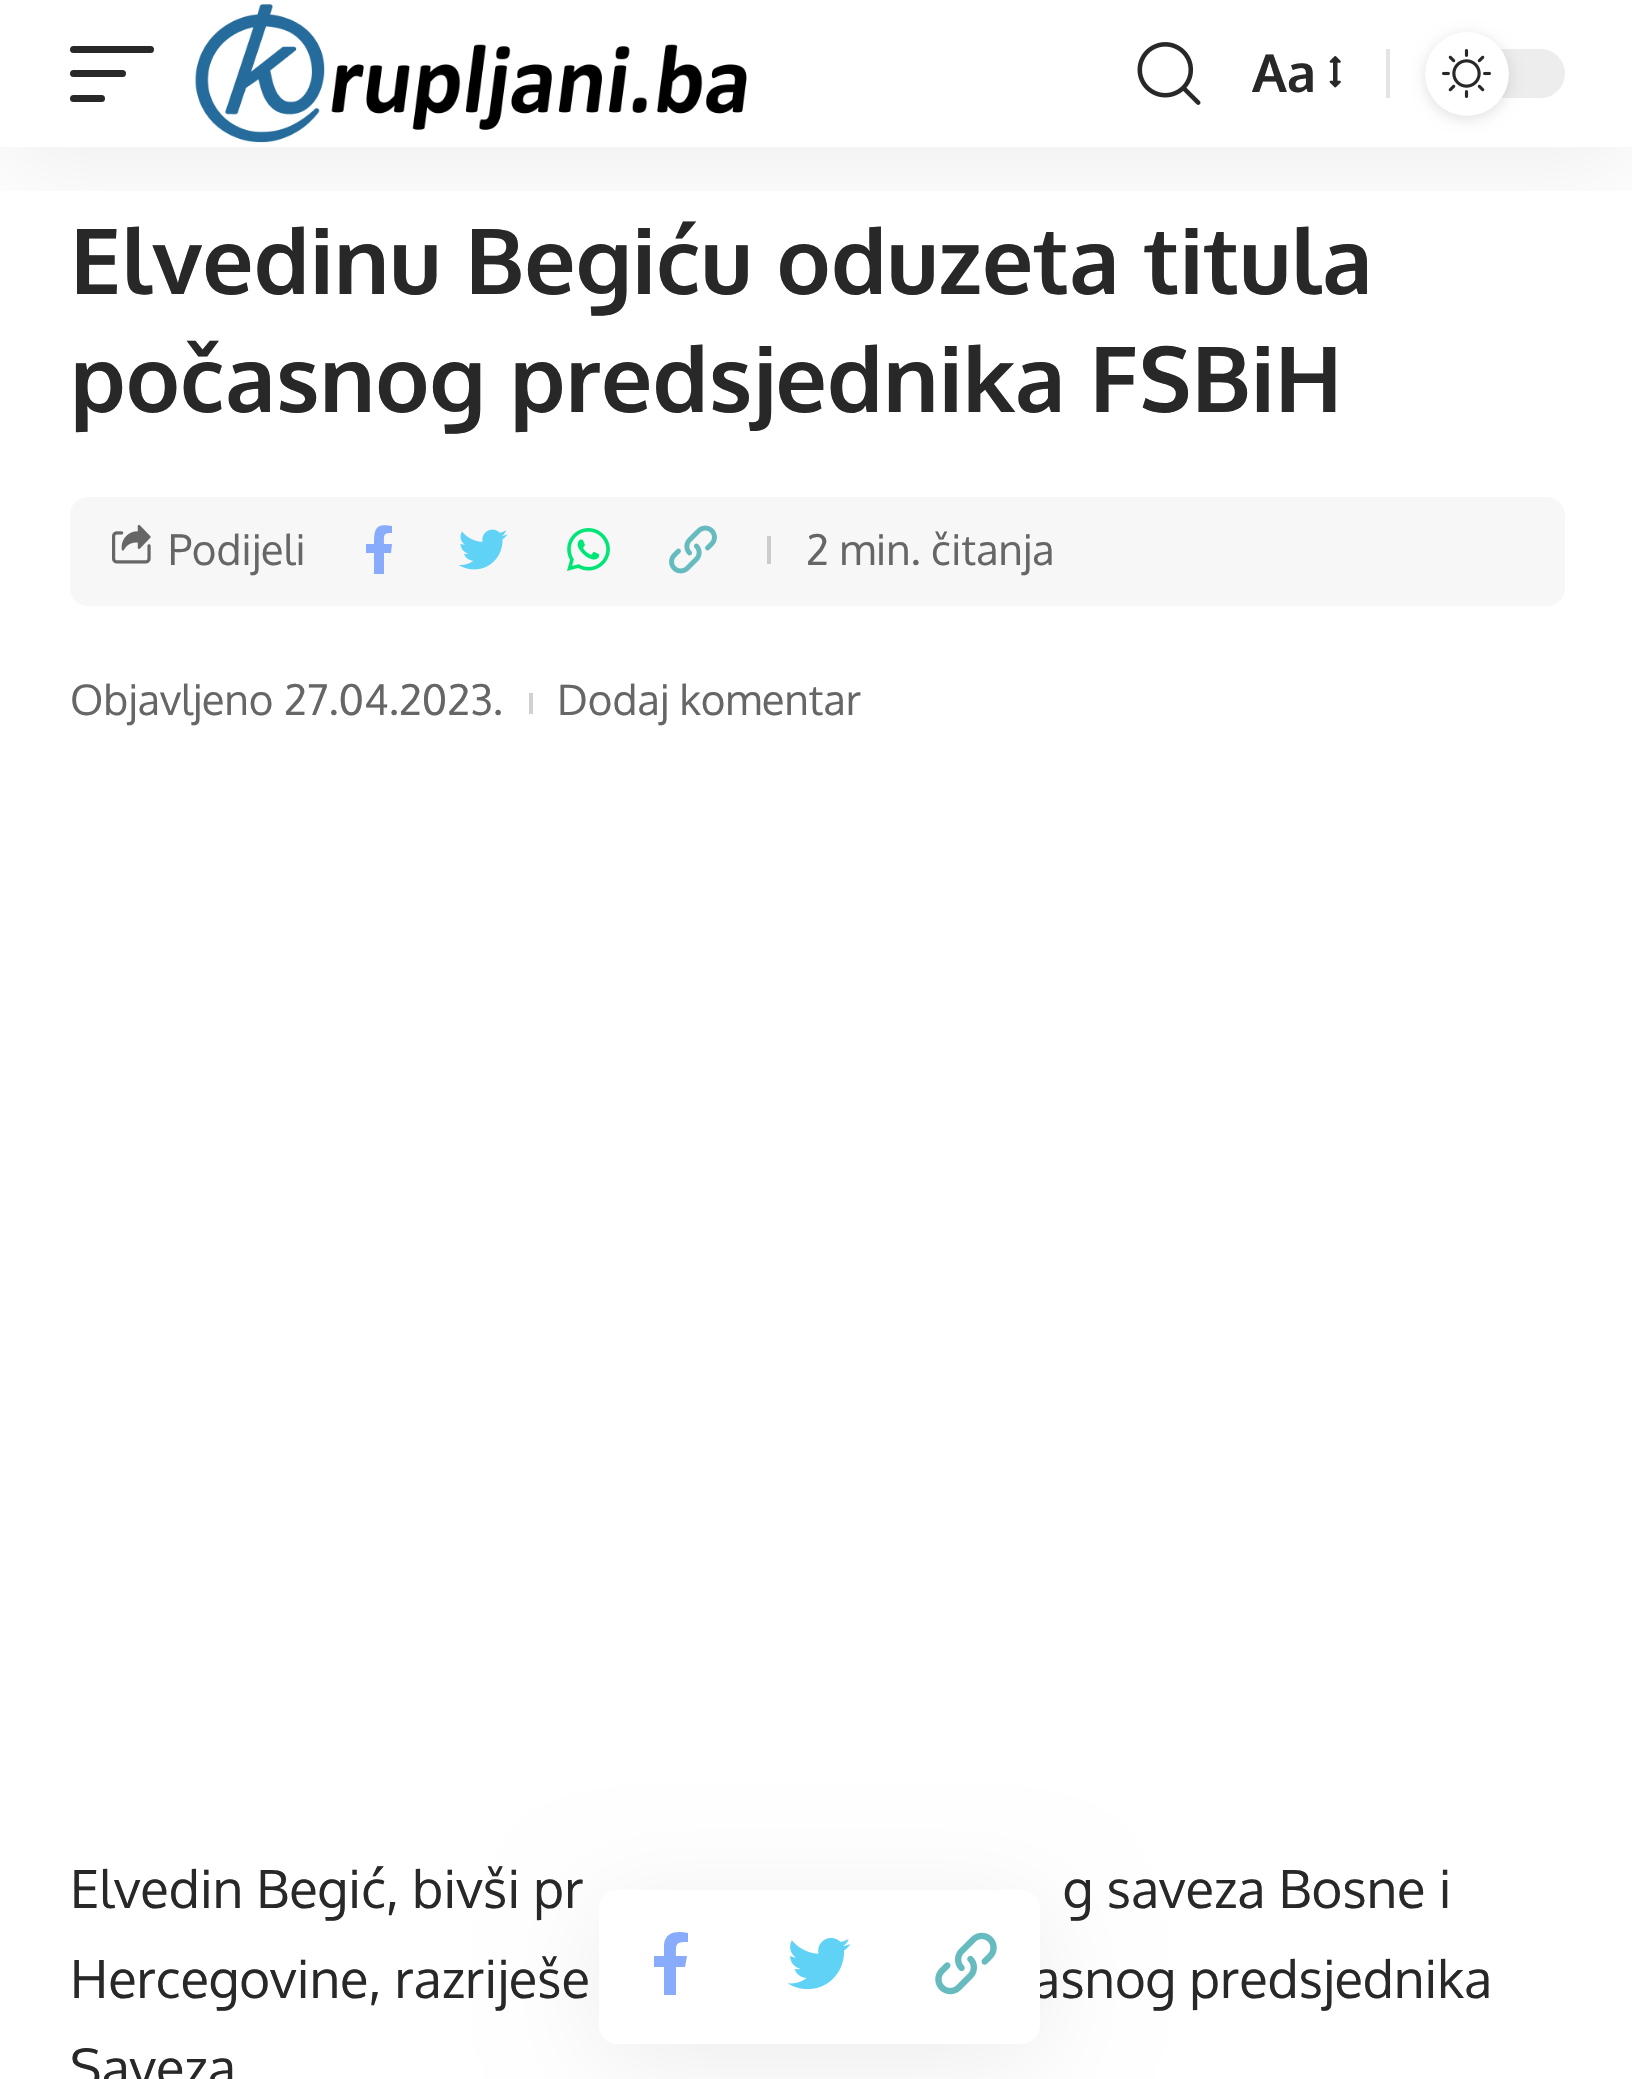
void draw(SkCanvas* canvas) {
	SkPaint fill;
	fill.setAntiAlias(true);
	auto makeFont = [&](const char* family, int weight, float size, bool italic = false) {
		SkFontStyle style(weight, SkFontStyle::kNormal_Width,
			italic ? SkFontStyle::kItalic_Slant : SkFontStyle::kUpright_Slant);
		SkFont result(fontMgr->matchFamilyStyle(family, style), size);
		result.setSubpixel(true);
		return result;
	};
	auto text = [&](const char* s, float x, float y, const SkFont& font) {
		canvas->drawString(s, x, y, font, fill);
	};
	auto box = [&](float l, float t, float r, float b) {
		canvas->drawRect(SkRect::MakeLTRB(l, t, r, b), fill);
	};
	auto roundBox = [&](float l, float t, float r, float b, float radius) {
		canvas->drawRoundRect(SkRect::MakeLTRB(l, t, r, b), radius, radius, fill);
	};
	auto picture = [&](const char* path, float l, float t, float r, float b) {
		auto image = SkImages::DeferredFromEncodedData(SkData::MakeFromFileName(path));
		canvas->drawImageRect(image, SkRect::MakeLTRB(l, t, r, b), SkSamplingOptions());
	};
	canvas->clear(0xFFFFFFFF);
	canvas->save();
	canvas->clipRect(SkRect::MakeLTRB(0, 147, 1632, 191));
	fill.setColor(0x12000000);
	fill.setMaskFilter(SkMaskFilter::MakeBlur(kNormal_SkBlurStyle, 52.5f));
	canvas->drawRect(SkRect::MakeLTRB(0, 14, 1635, 161), fill);
	fill.setMaskFilter(nullptr);
	canvas->restore();
	fill.setColor(0xFF282828);
	roundBox(70, 46, 154, 53, 3.5f);
	roundBox(70, 70, 126, 77, 3.5f);
	roundBox(70, 95, 105, 102, 3.5f);
	picture("image0.png", 195, 4, 747, 143);
	picture("image1.png", 1137, 42, 1201, 105);
	picture("image2.png", 1329, 56, 1341, 88);
	fill.setColor(0xFFE4E4E4);
	box(1386, 49, 1390, 98);
	fill.setColor(0xFFEDEDED);
	roundBox(1425, 49, 1565, 98, 24.5f);
	fill.setColor(0x1F000000);
	fill.setMaskFilter(SkMaskFilter::MakeBlur(kNormal_SkBlurStyle, 7));
	canvas->drawRoundRect(SkRect::MakeLTRB(1425, 35, 1509, 119), 42, 42, fill);
	fill.setMaskFilter(nullptr);
	fill.setColor(0xFFFFFFFF);
	canvas->drawCircle(1467, 74, 42, fill);
	picture("image3.png", 1442, 49, 1491, 98);
	fill.setColor(0xFFF7F7F7);
	roundBox(70, 497, 1565, 606, 18);
	picture("image4.png", 112, 524, 151, 564);
	fill.setColor(0xFF89ABFC);
	canvas->drawPath(SkPathBuilder().moveTo(391, 553).lineTo(392, 544).lineTo(384, 544).cubicTo(384, 535, 383, 533, 392, 533).lineTo(392, 526).cubicTo(376, 523, 374, 528, 374, 544).lineTo(366, 544).lineTo(366, 553).lineTo(374, 553).lineTo(374, 574).lineTo(384, 574).lineTo(384, 553).close().detach(), fill);
	picture("image5.png", 458, 529, 508, 570);
	picture("image6.png", 567, 528, 610, 571);
	picture("image7.png", 669, 525, 717, 574);
	fill.setColor(0xFFCCCCCC);
	box(767, 536, 771, 564);
	fill.setColor(0xFFD1D1D1);
	box(529, 693, 533, 714);
	fill.setColor(0x12000000);
	fill.setMaskFilter(SkMaskFilter::MakeBlur(kNormal_SkBlurStyle, 52.5f));
	canvas->drawRoundRect(SkRect::MakeLTRB(599, 1908, 1040, 2062), 18, 18, fill);
	fill.setMaskFilter(nullptr);
	auto font1 = makeFont("Oxygen", 700, 52.5f);
	fill.setColor(0xFF282828);
	text("Aa", 1252, 92, font1);
	auto font2 = makeFont("Oxygen", 700, 91);
	text("Elvedinu Begiću oduzeta titula", 70, 294, font2);
	text("počasnog predsjednika FSBiH", 70, 412, font2);
	auto font3 = makeFont("Oxygen", 400, 42);
	fill.setColor(0xFF666666);
	text("Podijeli", 168, 565, font3);
	text("2 min. čitanja", 806, 565, font3);
	text("Objavljeno 27.04.2023.", 70, 715, font3);
	text("Dodaj komentar", 557, 715, font3);
	auto font4 = makeFont("Oxygen", 400, 52.5f);
	fill.setColor(0xFF282828);
	text("Elvedin Begić, bivši pr", 70, 1908, font4);
	text("g saveza Bosne i", 1063, 1908, font4);
	text("Hercegovine, razriješe", 70, 1998, font4);
	text("asnog predsjednika", 1032, 1998, font4);
	fill.setColor(0xFFFFFFFF);
	roundBox(599, 1890, 1040, 2044, 18);
	picture("image9.png", 935, 1932, 997, 1995);
	picture("image8.png", 787, 1937, 851, 1990);
	fill.setColor(0xFF89ABFC);
	canvas->drawPath(SkPathBuilder().moveTo(685, 1967).lineTo(687, 1956).lineTo(676, 1956).cubicTo(676, 1944, 675, 1942, 688, 1942).lineTo(688, 1933).cubicTo(678, 1931, 666, 1931, 664, 1944).lineTo(664, 1956).lineTo(654, 1956).lineTo(654, 1967).lineTo(664, 1967).lineTo(664, 1995).lineTo(676, 1995).lineTo(676, 1967).close().detach(), fill);
	fill.setColor(0xFF282828);
	text("Saveza", 70, 2087, font4);
}
